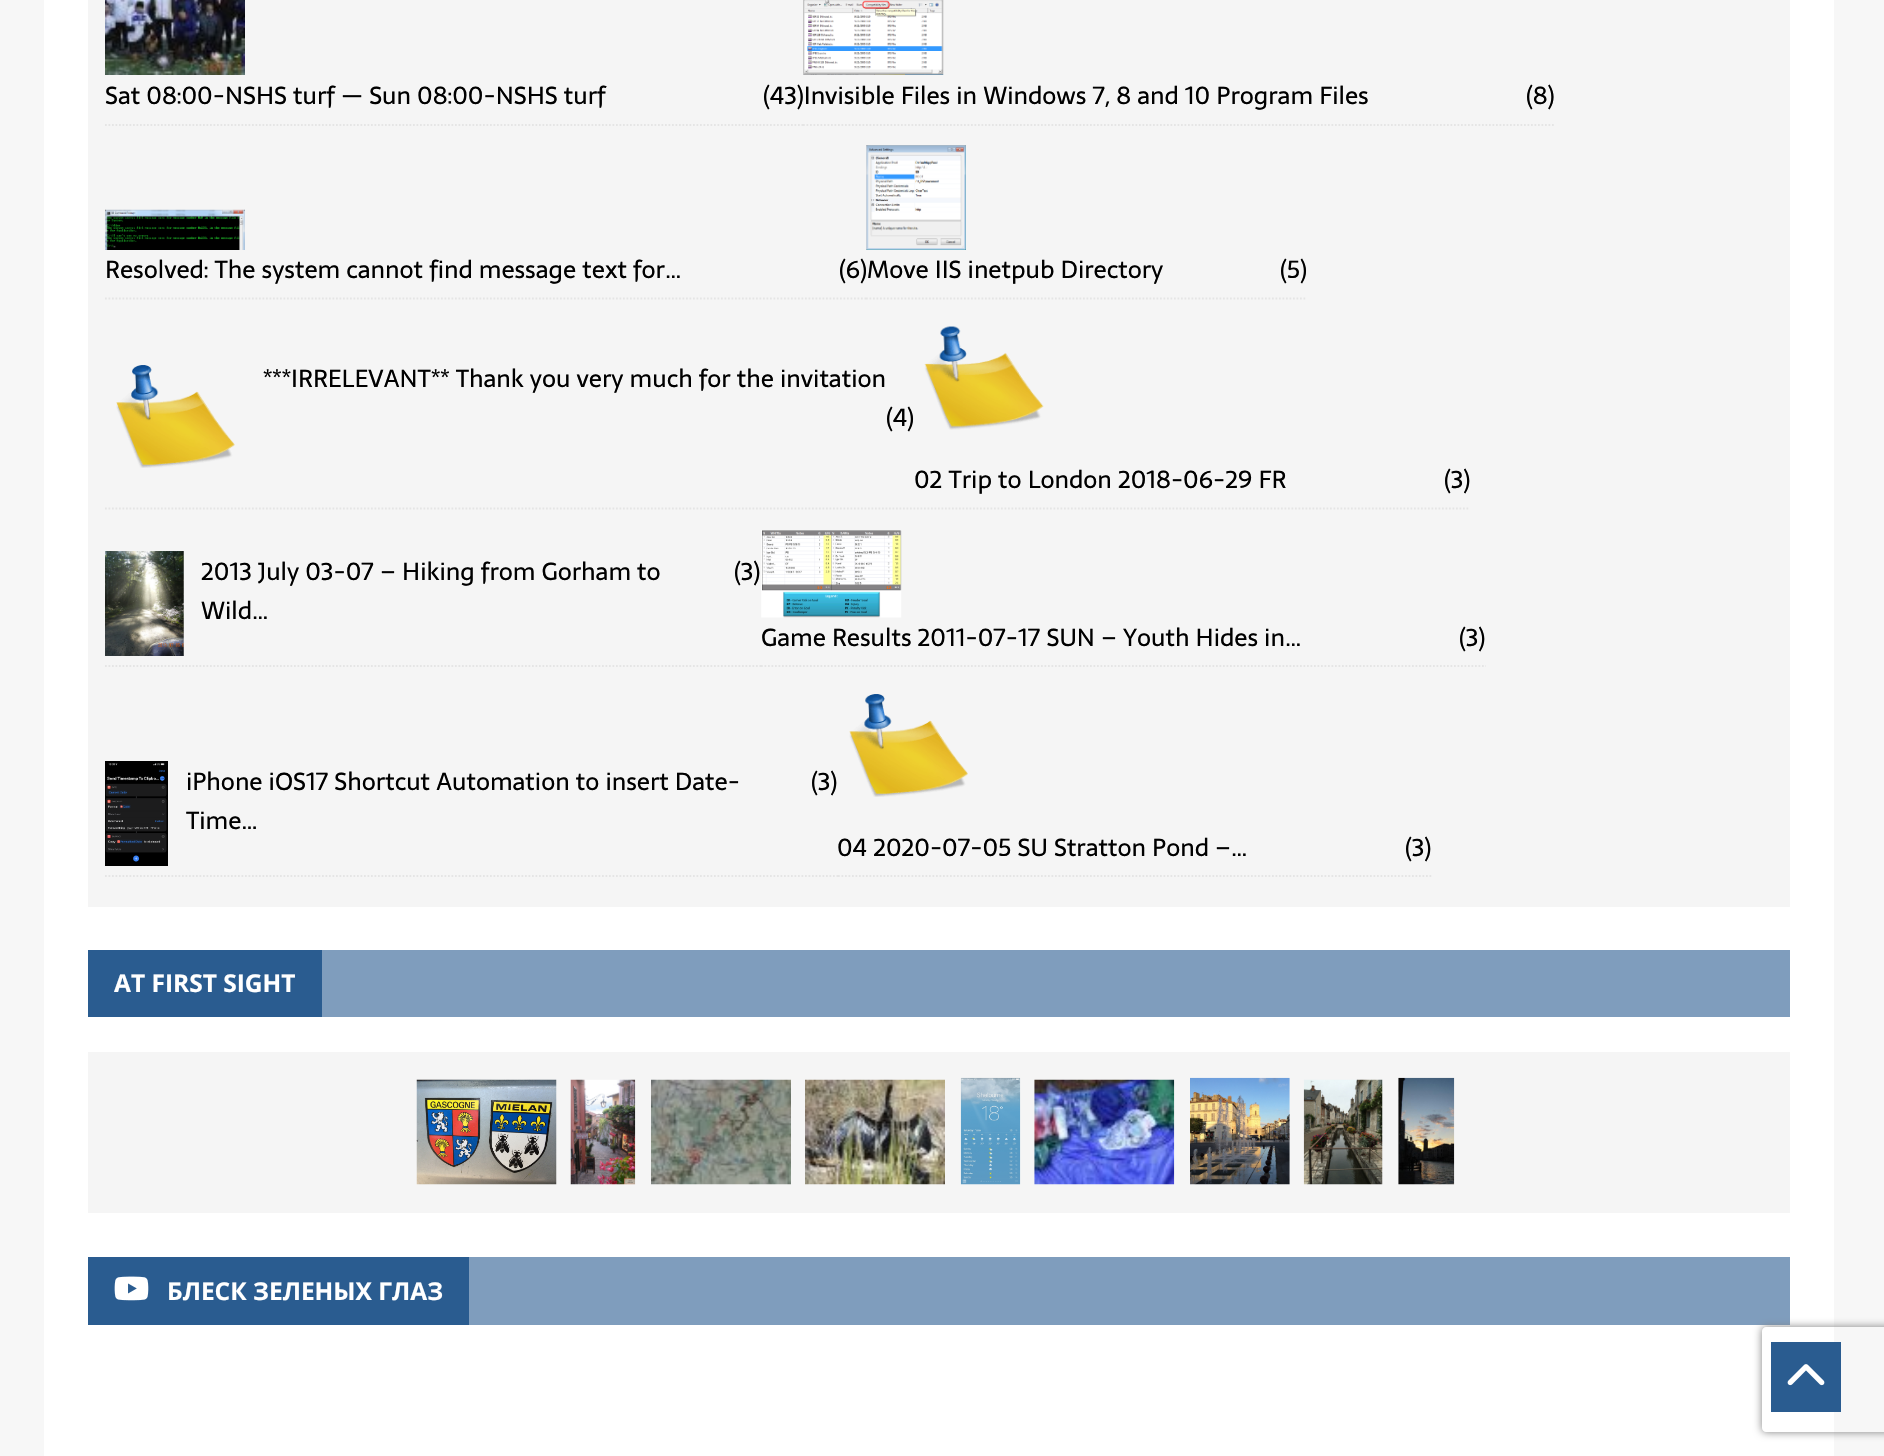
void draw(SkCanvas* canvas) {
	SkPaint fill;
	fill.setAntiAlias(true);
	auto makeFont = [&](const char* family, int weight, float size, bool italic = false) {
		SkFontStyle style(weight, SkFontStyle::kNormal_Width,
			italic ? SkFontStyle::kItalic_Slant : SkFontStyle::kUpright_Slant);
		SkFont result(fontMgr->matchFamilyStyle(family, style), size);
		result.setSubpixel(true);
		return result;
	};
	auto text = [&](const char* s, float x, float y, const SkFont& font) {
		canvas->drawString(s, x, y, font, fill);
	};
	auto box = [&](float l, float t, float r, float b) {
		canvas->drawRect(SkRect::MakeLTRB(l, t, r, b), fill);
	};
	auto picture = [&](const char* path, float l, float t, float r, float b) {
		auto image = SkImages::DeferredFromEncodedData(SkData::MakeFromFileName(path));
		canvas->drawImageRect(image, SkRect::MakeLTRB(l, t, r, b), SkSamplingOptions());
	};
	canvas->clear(0xFFF7F7F7);
	fill.setColor(0xFFFFFFFF);
	box(44, 0, 1834, 1456);
	fill.setColor(0xFFF5F5F5);
	box(88, 0, 1790, 907);
	fill.setStyle(SkPaint::kStroke_Style);
	fill.setStrokeWidth(1.8f);
	fill.setColor(0xFFE5E5E5);
	fill.setPathEffect(SkDashPathEffect::Make({{1.75f, 1.75f}}, 0));
	canvas->drawPath(SkPathBuilder().moveTo(105, 125).lineTo(803, 125).detach(), fill);
	fill.setPathEffect(nullptr);
	picture("image0.png", 105, 0, 245, 75);
	fill.setPathEffect(SkDashPathEffect::Make({{1.75f, 1.75f}}, 0));
	canvas->drawPath(SkPathBuilder().moveTo(803, 125).lineTo(1554, 125).detach(), fill);
	fill.setPathEffect(nullptr);
	picture("image1.png", 803, 0, 944, 75);
	fill.setPathEffect(SkDashPathEffect::Make({{1.75f, 1.75f}}, 0));
	canvas->drawPath(SkPathBuilder().moveTo(105, 298.5f).lineTo(866, 298.5f).detach(), fill);
	fill.setPathEffect(nullptr);
	picture("image2.png", 105, 209, 245, 250);
	fill.setPathEffect(SkDashPathEffect::Make({{1.75f, 1.75f}}, 0));
	canvas->drawPath(SkPathBuilder().moveTo(866, 298.5f).lineTo(1307, 298.5f).detach(), fill);
	fill.setPathEffect(nullptr);
	picture("image3.png", 866, 145, 966, 250);
	fill.setPathEffect(SkDashPathEffect::Make({{1.75f, 1.75f}}, 0));
	canvas->drawPath(SkPathBuilder().moveTo(105, 508.5f).lineTo(913.5f, 508.5f).detach(), fill);
	fill.setPathEffect(nullptr);
	picture("image4.png", 116, 365, 235, 468);
	fill.setPathEffect(SkDashPathEffect::Make({{1.75f, 1.75f}}, 0));
	canvas->drawPath(SkPathBuilder().moveTo(913.5f, 508.5f).lineTo(1470, 508.5f).detach(), fill);
	fill.setPathEffect(nullptr);
	picture("image5.png", 924, 326, 1044, 430);
	fill.setPathEffect(SkDashPathEffect::Make({{1.75f, 1.75f}}, 0));
	canvas->drawPath(SkPathBuilder().moveTo(105, 666).lineTo(761, 666).detach(), fill);
	fill.setPathEffect(nullptr);
	picture("image6.png", 105, 551, 184, 656);
	fill.setPathEffect(SkDashPathEffect::Make({{1.75f, 1.75f}}, 0));
	canvas->drawPath(SkPathBuilder().moveTo(761, 666).lineTo(1486, 666).detach(), fill);
	fill.setPathEffect(nullptr);
	picture("image7.png", 761, 530, 902, 618);
	fill.setPathEffect(SkDashPathEffect::Make({{1.75f, 1.75f}}, 0));
	canvas->drawPath(SkPathBuilder().moveTo(105, 876).lineTo(838, 876).detach(), fill);
	fill.setPathEffect(nullptr);
	picture("image8.png", 105, 761, 168, 866);
	fill.setPathEffect(SkDashPathEffect::Make({{1.75f, 1.75f}}, 0));
	canvas->drawPath(SkPathBuilder().moveTo(838, 876).lineTo(1431.5f, 876).detach(), fill);
	fill.setPathEffect(nullptr);
	picture("image9.png", 849, 694, 968, 797);
	fill.setStyle(SkPaint::kFill_Style);
	fill.setColor(0xFF7F9DBD);
	box(322, 950, 1790, 1017);
	fill.setColor(0xFF2A5C90);
	box(88, 950, 322, 1017);
	fill.setColor(0xFFF5F5F5);
	box(88, 1052, 1790, 1213);
	picture("image10.png", 416, 1079, 557, 1185);
	picture("image11.png", 570, 1079, 636, 1185);
	picture("image12.png", 651, 1079, 791, 1185);
	picture("image13.png", 805, 1079, 945, 1185);
	picture("image14.png", 960, 1077, 1021, 1185);
	picture("image15.png", 1034, 1079, 1175, 1185);
	picture("image16.png", 1190, 1077, 1290, 1185);
	picture("image17.png", 1303, 1079, 1383, 1185);
	picture("image18.png", 1398, 1077, 1455, 1185);
	fill.setColor(0xFF7F9DBD);
	box(469, 1257, 1790, 1325);
	fill.setColor(0xFF2A5C90);
	box(88, 1257, 469, 1325);
	picture("image19.png", 114, 1276, 149, 1301);
	canvas->save();
	canvas->clipPath(SkPathBuilder(SkPathFillType::kEvenOdd).moveTo(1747, 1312).lineTo(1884, 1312).lineTo(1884, 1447).lineTo(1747, 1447).close().moveTo(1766, 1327).lineTo(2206, 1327).cubicTo(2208, 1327, 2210, 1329, 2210, 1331).lineTo(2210, 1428).cubicTo(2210, 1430, 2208, 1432, 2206, 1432).lineTo(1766, 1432).cubicTo(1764, 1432, 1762, 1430, 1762, 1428).lineTo(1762, 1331).cubicTo(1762, 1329, 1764, 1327, 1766, 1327).close().detach(), true);
	fill.setColor(0xFF808080);
	fill.setMaskFilter(SkMaskFilter::MakeBlur(kNormal_SkBlurStyle, 4.5f));
	canvas->drawRoundRect(SkRect::MakeLTRB(1762, 1327, 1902, 1432), 4, 4, fill);
	fill.setMaskFilter(nullptr);
	canvas->restore();
	fill.setColor(0xFF2A5C90);
	box(1771, 1342, 1841, 1412);
	picture("image20.png", 1787, 1364, 1825, 1386);
	auto font1 = makeFont("Sarala", 400, 24.5f);
	fill.setColor(0xFF000000);
	text("Sat 08:00-NSHS turf — Sun 08:00-NSHS turf", 105, 104, font1);
	text("(43)Invisible Files in Windows 7, 8 and 10 Program Files", 763, 104, font1);
	text("(8)", 1526, 104, font1);
	text("Resolved: The system cannot find message text for…", 105, 278, font1);
	text("(6)Move IIS inetpub Directory", 839, 278, font1);
	text("(5)", 1280, 278, font1);
	text("***IRRELEVANT** Thank you very much for the invitation", 263, 387, font1);
	text("(4)", 886, 426, font1);
	text("02 Trip to London 2018-06-29 FR", 914, 488, font1);
	text("(3)", 1444, 488, font1);
	text("2013 July 03-07 – Hiking from Gorham to", 201, 580, font1);
	text("Wild…", 201, 619, font1);
	text("(3)", 734, 580, font1);
	text("Game Results 2011-07-17 SUN – Youth Hides in…", 761, 646, font1);
	text("(3)", 1459, 646, font1);
	text("iPhone iOS17 Shortcut Automation to insert Date-", 186, 790, font1);
	text("Time…", 186, 829, font1);
	text("(3)", 811, 790, font1);
	text("04 2020-07-05 SU Stratton Pond –…", 837, 856, font1);
	text("(3)", 1405, 856, font1);
	auto font2 = makeFont("Open Sans", 700, 24.5f);
	fill.setColor(0xFFFFFFFF);
	text("AT FIRST SIGHT", 114, 992, font2);
	text("БЛЕСК ЗЕЛЕНЫХ ГЛАЗ", 167, 1300, font2);
}
